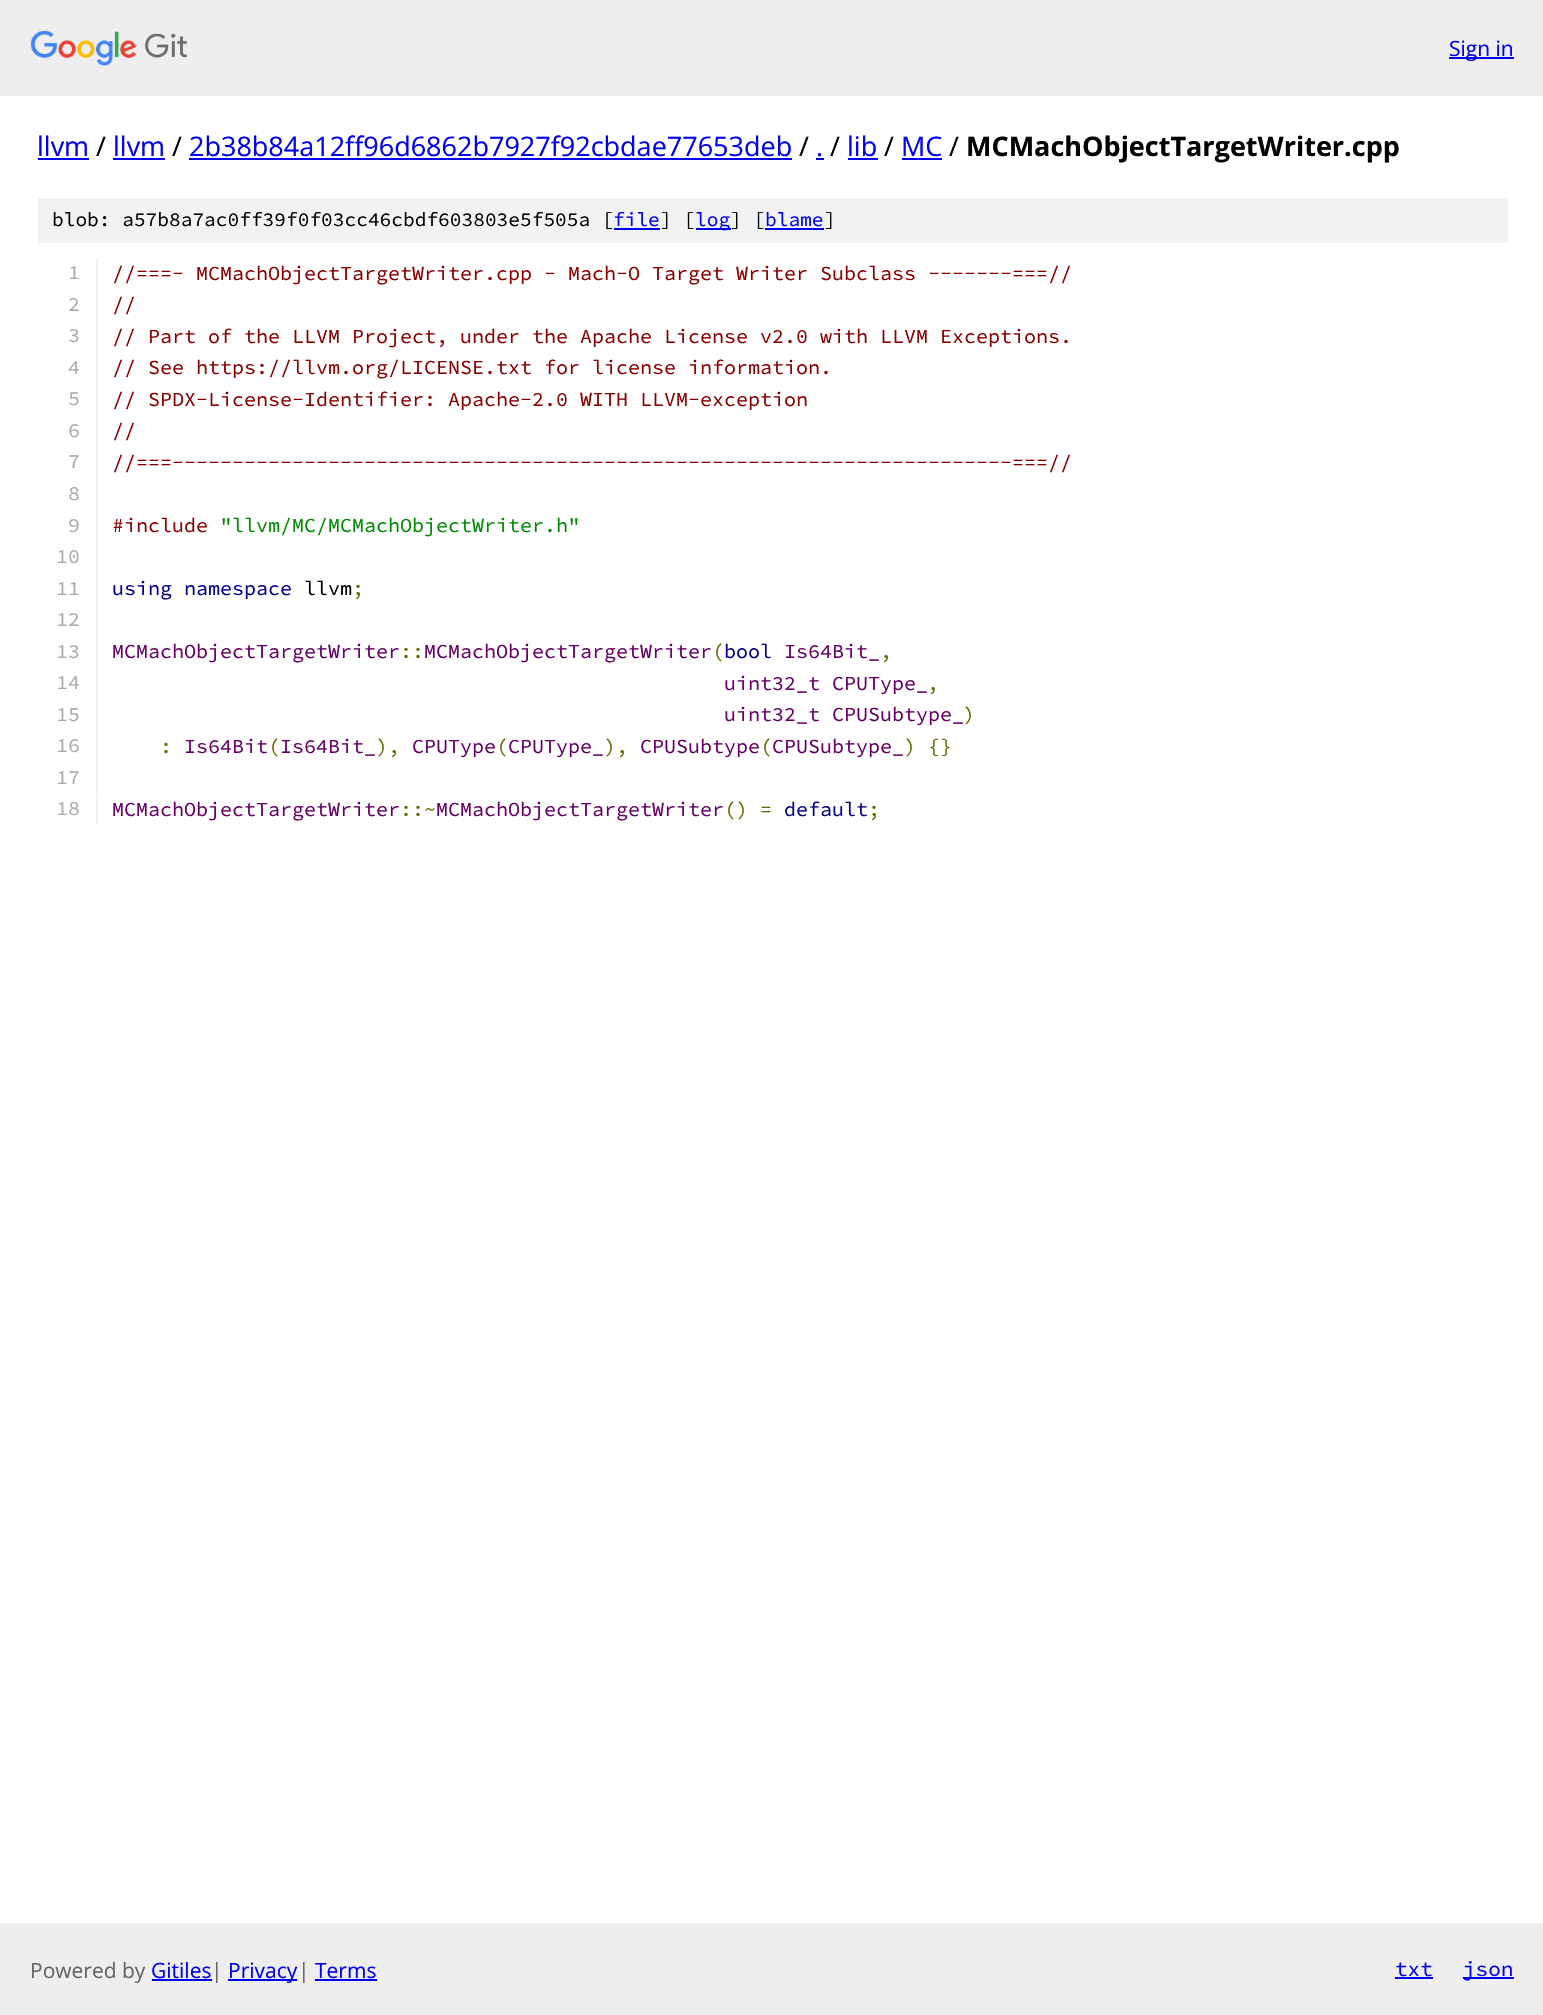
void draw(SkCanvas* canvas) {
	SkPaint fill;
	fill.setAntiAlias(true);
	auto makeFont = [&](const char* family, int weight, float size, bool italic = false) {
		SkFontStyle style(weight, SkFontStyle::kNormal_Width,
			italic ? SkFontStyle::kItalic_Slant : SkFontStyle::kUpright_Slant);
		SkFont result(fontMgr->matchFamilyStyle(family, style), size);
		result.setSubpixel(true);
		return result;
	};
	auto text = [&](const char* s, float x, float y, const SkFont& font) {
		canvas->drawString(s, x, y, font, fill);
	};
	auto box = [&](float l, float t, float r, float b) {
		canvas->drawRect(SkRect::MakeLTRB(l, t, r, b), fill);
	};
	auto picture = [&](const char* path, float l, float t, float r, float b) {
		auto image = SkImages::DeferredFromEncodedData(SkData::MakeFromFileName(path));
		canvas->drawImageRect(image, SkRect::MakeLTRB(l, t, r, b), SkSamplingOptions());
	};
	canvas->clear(0xFFFFFFFF);
	fill.setColor(0xFFEEEEEE);
	box(0, 0, 1543, 96);
	picture("image0.png", 30, 30, 187, 66);
	fill.setColor(0xFF0000EE);
	box(1449, 57, 1514, 59);
	box(38, 158, 89, 160);
	box(113, 158, 165, 160);
	box(189, 158, 792, 160);
	box(816, 158, 824, 160);
	box(848, 158, 878, 160);
	box(902, 158, 942, 160);
	fill.setColor(0xFFF1F2F3);
	box(38, 198, 1508, 243);
	fill.setColor(0xFF0000EE);
	box(614, 228, 660, 230);
	box(696, 228, 731, 230);
	box(765, 228, 824, 230);
	fill.setColor(0xFFF1F2F3);
	box(96, 258, 98, 794);
	box(96, 795, 98, 825);
	fill.setColor(0xFFEEEEEE);
	box(0, 1923, 1543, 2015);
	fill.setColor(0xFF0000EE);
	box(152, 1979, 212, 1981);
	box(228, 1979, 297, 1981);
	box(315, 1979, 377, 1981);
	box(1395, 1977, 1433, 1979);
	box(1463, 1977, 1514, 1979);
	auto font1 = makeFont("Open Sans", 400, 21);
	text("Sign in", 1449, 56, font1);
	auto font2 = makeFont("Open Sans", 400, 27);
	text("llvm", 37, 156, font2);
	fill.setColor(0xFF000000);
	text("/", 96, 156, font2);
	fill.setColor(0xFF0000EE);
	text("llvm", 113, 156, font2);
	fill.setColor(0xFF000000);
	text("/", 172, 156, font2);
	fill.setColor(0xFF0000EE);
	text("2b38b84a12ff96d6862b7927f92cbdae77653deb", 189, 156, font2);
	fill.setColor(0xFF000000);
	text("/", 799, 156, font2);
	fill.setColor(0xFF0000EE);
	text(".", 816, 156, font2);
	fill.setColor(0xFF000000);
	text("/", 830, 156, font2);
	fill.setColor(0xFF0000EE);
	text("lib", 847, 156, font2);
	fill.setColor(0xFF000000);
	text("/", 884, 156, font2);
	fill.setColor(0xFF0000EE);
	text("MC", 901, 156, font2);
	fill.setColor(0xFF000000);
	text("/", 949, 156, font2);
	auto font3 = makeFont("Open Sans", 700, 27);
	text("MCMachObjectTargetWriter.cpp", 966, 156, font3);
	auto font4 = makeFont("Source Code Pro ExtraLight", 200, 19.5f);
	text("blob: a57b8a7ac0ff39f0f03cc46cbdf603803e5f505a [", 52, 226, font4);
	fill.setColor(0xFF0000EE);
	text("file", 613, 226, font4);
	fill.setColor(0xFF000000);
	text("] [", 660, 226, font4);
	fill.setColor(0xFF0000EE);
	text("log", 695, 226, font4);
	fill.setColor(0xFF000000);
	text("] [", 730, 226, font4);
	fill.setColor(0xFF0000EE);
	text("blame", 765, 226, font4);
	fill.setColor(0xFF000000);
	text("]", 824, 226, font4);
	auto font5 = makeFont("Source Code Pro ExtraLight", 200, 20);
	fill.setColor(0xFFAAAAAA);
	text("1", 68, 279, font5);
	fill.setColor(0xFF880000);
	text("//===- MCMachObjectTargetWriter.cpp - Mach-O Target Writer Subclass -------===//", 112, 280, font5);
	fill.setColor(0xFFAAAAAA);
	text("2", 68, 311, font5);
	fill.setColor(0xFF880000);
	text("//", 112, 311, font5);
	fill.setColor(0xFFAAAAAA);
	text("3", 68, 342, font5);
	fill.setColor(0xFF880000);
	text("// Part of the LLVM Project, under the Apache License v2.0 with LLVM Exceptions.", 112, 343, font5);
	fill.setColor(0xFFAAAAAA);
	text("4", 68, 374, font5);
	fill.setColor(0xFF880000);
	text("// See https://llvm.org/LICENSE.txt for license information.", 112, 374, font5);
	fill.setColor(0xFFAAAAAA);
	text("5", 68, 405, font5);
	fill.setColor(0xFF880000);
	text("// SPDX-License-Identifier: Apache-2.0 WITH LLVM-exception", 112, 406, font5);
	fill.setColor(0xFFAAAAAA);
	text("6", 68, 437, font5);
	fill.setColor(0xFF880000);
	text("//", 112, 437, font5);
	fill.setColor(0xFFAAAAAA);
	text("7", 68, 468, font5);
	fill.setColor(0xFF880000);
	text("//===----------------------------------------------------------------------===//", 112, 469, font5);
	fill.setColor(0xFFAAAAAA);
	text("8", 68, 500, font5);
	text("9", 68, 532, font5);
	fill.setColor(0xFF880000);
	text("#include", 112, 532, font5);
	fill.setColor(0xFF008800);
	text("\"llvm/MC/MCMachObjectWriter.h\"", 220, 532, font5);
	fill.setColor(0xFFAAAAAA);
	text("10", 56, 563, font5);
	text("11", 56, 595, font5);
	fill.setColor(0xFF000088);
	text("using namespace", 112, 595, font5);
	fill.setColor(0xFF000000);
	text("llvm", 304, 595, font5);
	fill.setColor(0xFF666600);
	text(";", 352, 595, font5);
	fill.setColor(0xFFAAAAAA);
	text("12", 56, 626, font5);
	text("13", 56, 658, font5);
	fill.setColor(0xFF660066);
	text("MCMachObjectTargetWriter", 112, 658, font5);
	fill.setColor(0xFF666600);
	text("::", 400, 658, font5);
	fill.setColor(0xFF660066);
	text("MCMachObjectTargetWriter", 424, 658, font5);
	fill.setColor(0xFF666600);
	text("(", 712, 658, font5);
	fill.setColor(0xFF000088);
	text("bool", 724, 658, font5);
	fill.setColor(0xFF660066);
	text("Is64Bit_", 784, 658, font5);
	fill.setColor(0xFF666600);
	text(",", 880, 658, font5);
	fill.setColor(0xFFAAAAAA);
	text("14", 56, 689, font5);
	fill.setColor(0xFF660066);
	text("uint32_t CPUType_", 724, 690, font5);
	fill.setColor(0xFF666600);
	text(",", 927, 690, font5);
	fill.setColor(0xFFAAAAAA);
	text("15", 56, 721, font5);
	fill.setColor(0xFF660066);
	text("uint32_t CPUSubtype_", 724, 721, font5);
	fill.setColor(0xFF666600);
	text(")", 963, 721, font5);
	fill.setColor(0xFFAAAAAA);
	text("16", 56, 752, font5);
	fill.setColor(0xFF660066);
	text("Is64Bit Is64Bit_", 184, 753, font5);
	fill.setColor(0xFF666600);
	text("(", 268, 753, font5);
	text("),", 376, 753, font5);
	text("),", 604, 753, font5);
	fill.setColor(0xFF660066);
	text("CPUSubtype CPUSubtype_", 640, 753, font5);
	fill.setColor(0xFF666600);
	text(":", 160, 753, font5);
	fill.setColor(0xFF660066);
	text("CPUType CPUType_", 412, 753, font5);
	fill.setColor(0xFF666600);
	text("(", 496, 753, font5);
	text("(", 760, 753, font5);
	text(") {}", 904, 753, font5);
	fill.setColor(0xFFAAAAAA);
	text("17", 56, 784, font5);
	text("18", 56, 815, font5);
	fill.setColor(0xFF660066);
	text("MCMachObjectTargetWriter", 112, 816, font5);
	fill.setColor(0xFF666600);
	text("::~", 400, 816, font5);
	fill.setColor(0xFF660066);
	text("MCMachObjectTargetWriter", 436, 816, font5);
	fill.setColor(0xFF666600);
	text("() =", 724, 816, font5);
	fill.setColor(0xFF000088);
	text("default", 784, 816, font5);
	fill.setColor(0xFF666600);
	text(";", 868, 816, font5);
	fill.setColor(0xFF666666);
	text("Powered by", 30, 1978, font1);
	fill.setColor(0xFF0000EE);
	text("Gitiles", 151, 1978, font1);
	fill.setColor(0xFF666666);
	text("|", 211, 1978, font1);
	fill.setColor(0xFF0000EE);
	text("Privacy", 228, 1978, font1);
	fill.setColor(0xFF666666);
	text("|", 298, 1978, font1);
	fill.setColor(0xFF0000EE);
	text("Terms", 315, 1978, font1);
	auto font6 = makeFont("Source Code Pro ExtraLight", 200, 21);
	text("txt", 1395, 1976, font6);
	text("json", 1463, 1976, font6);
}
